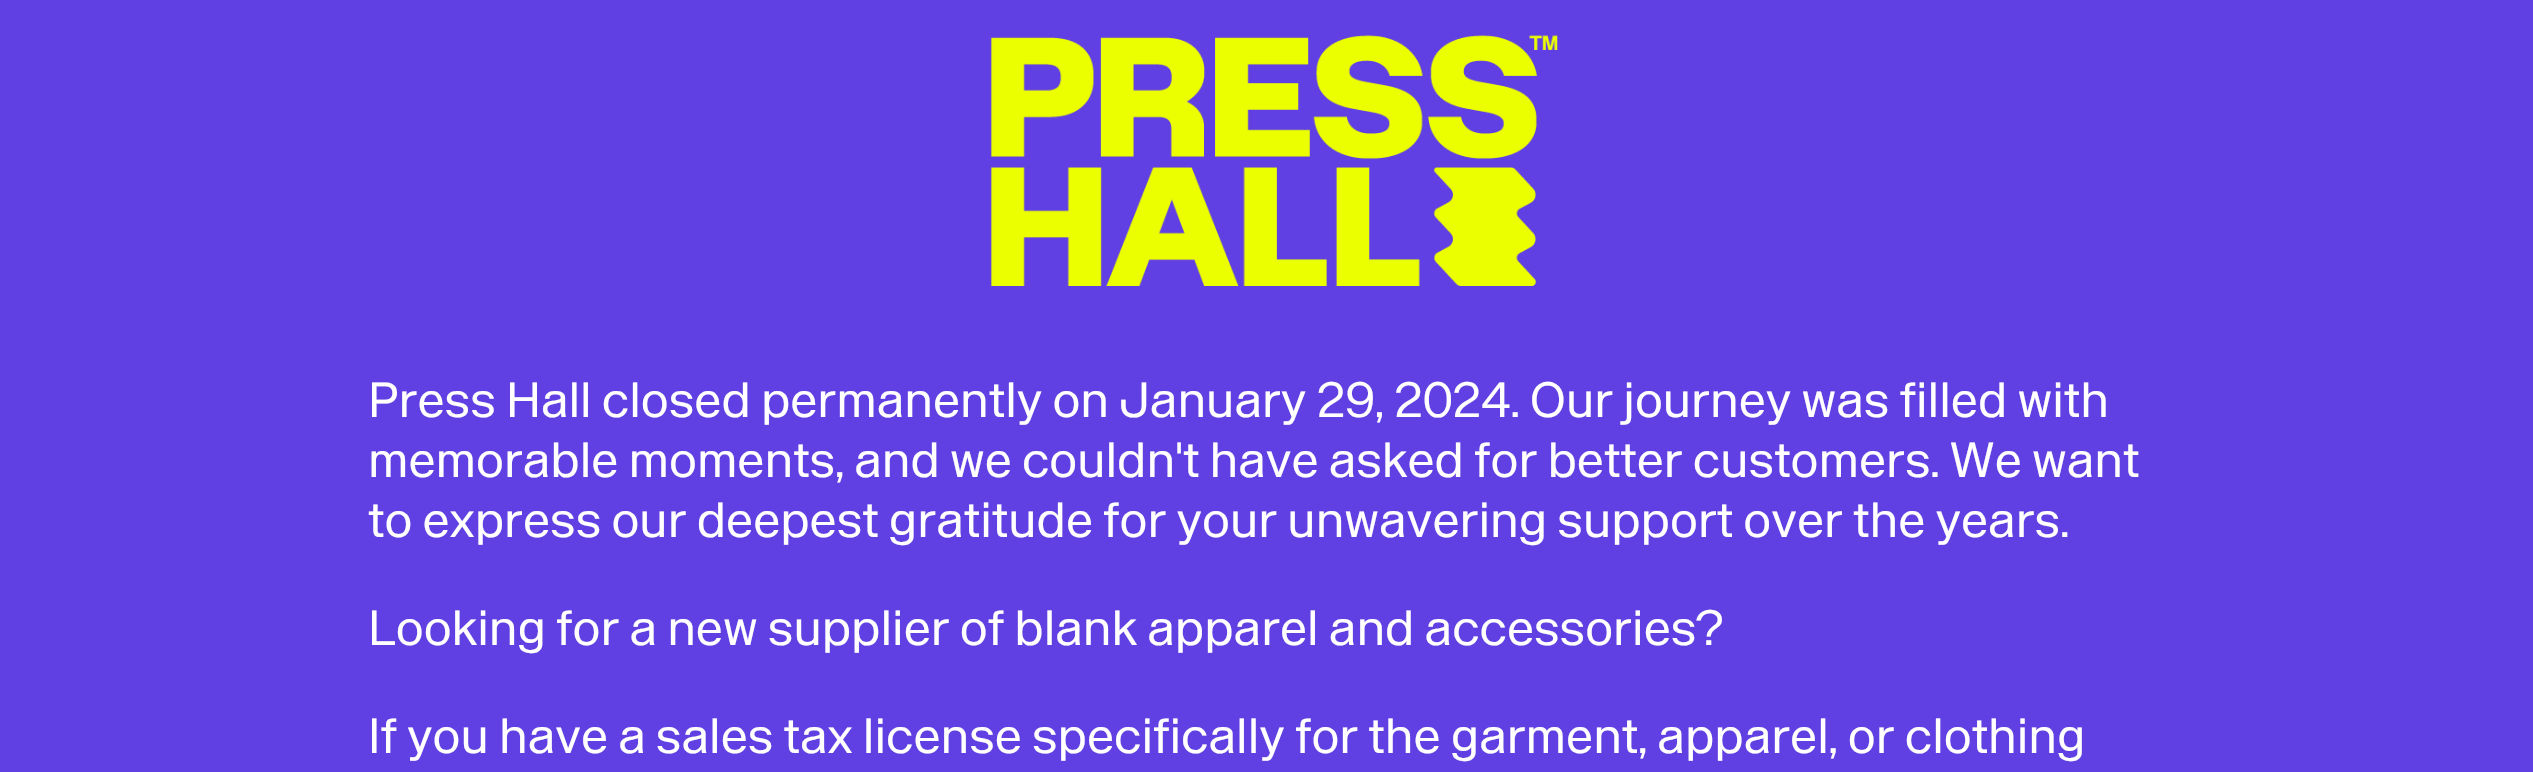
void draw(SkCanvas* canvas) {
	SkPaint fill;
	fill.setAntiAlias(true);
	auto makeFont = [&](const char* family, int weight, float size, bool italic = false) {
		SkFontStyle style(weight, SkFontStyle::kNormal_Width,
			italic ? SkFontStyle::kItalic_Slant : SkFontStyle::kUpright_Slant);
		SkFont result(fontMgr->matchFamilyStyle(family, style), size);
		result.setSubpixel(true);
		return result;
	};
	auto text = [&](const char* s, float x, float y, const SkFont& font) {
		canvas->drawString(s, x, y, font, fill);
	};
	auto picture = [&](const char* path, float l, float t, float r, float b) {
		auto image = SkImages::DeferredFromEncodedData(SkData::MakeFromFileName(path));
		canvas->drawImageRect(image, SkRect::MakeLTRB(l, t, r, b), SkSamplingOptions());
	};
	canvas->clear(0xFF6040E2);
	picture("image0.png", 991, 35, 1558, 286);
	auto font1 = makeFont("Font", 400, 48);
	fill.setColor(0xFFFFFFFF);
	text("Press Hall closed permanently on January 29, 2024. Our journey was filled with", 368, 417, font1);
	text("memorable moments, and we couldn't have asked for better customers. We want", 368, 477, font1);
	text("to express our deepest gratitude for your unwavering support over the years.", 368, 537, font1);
	text("Looking for a new supplier of blank apparel and accessories?", 368, 645, font1);
	text("If you have a sales tax license specifically for the garment, apparel, or clothing", 368, 753, font1);
}
